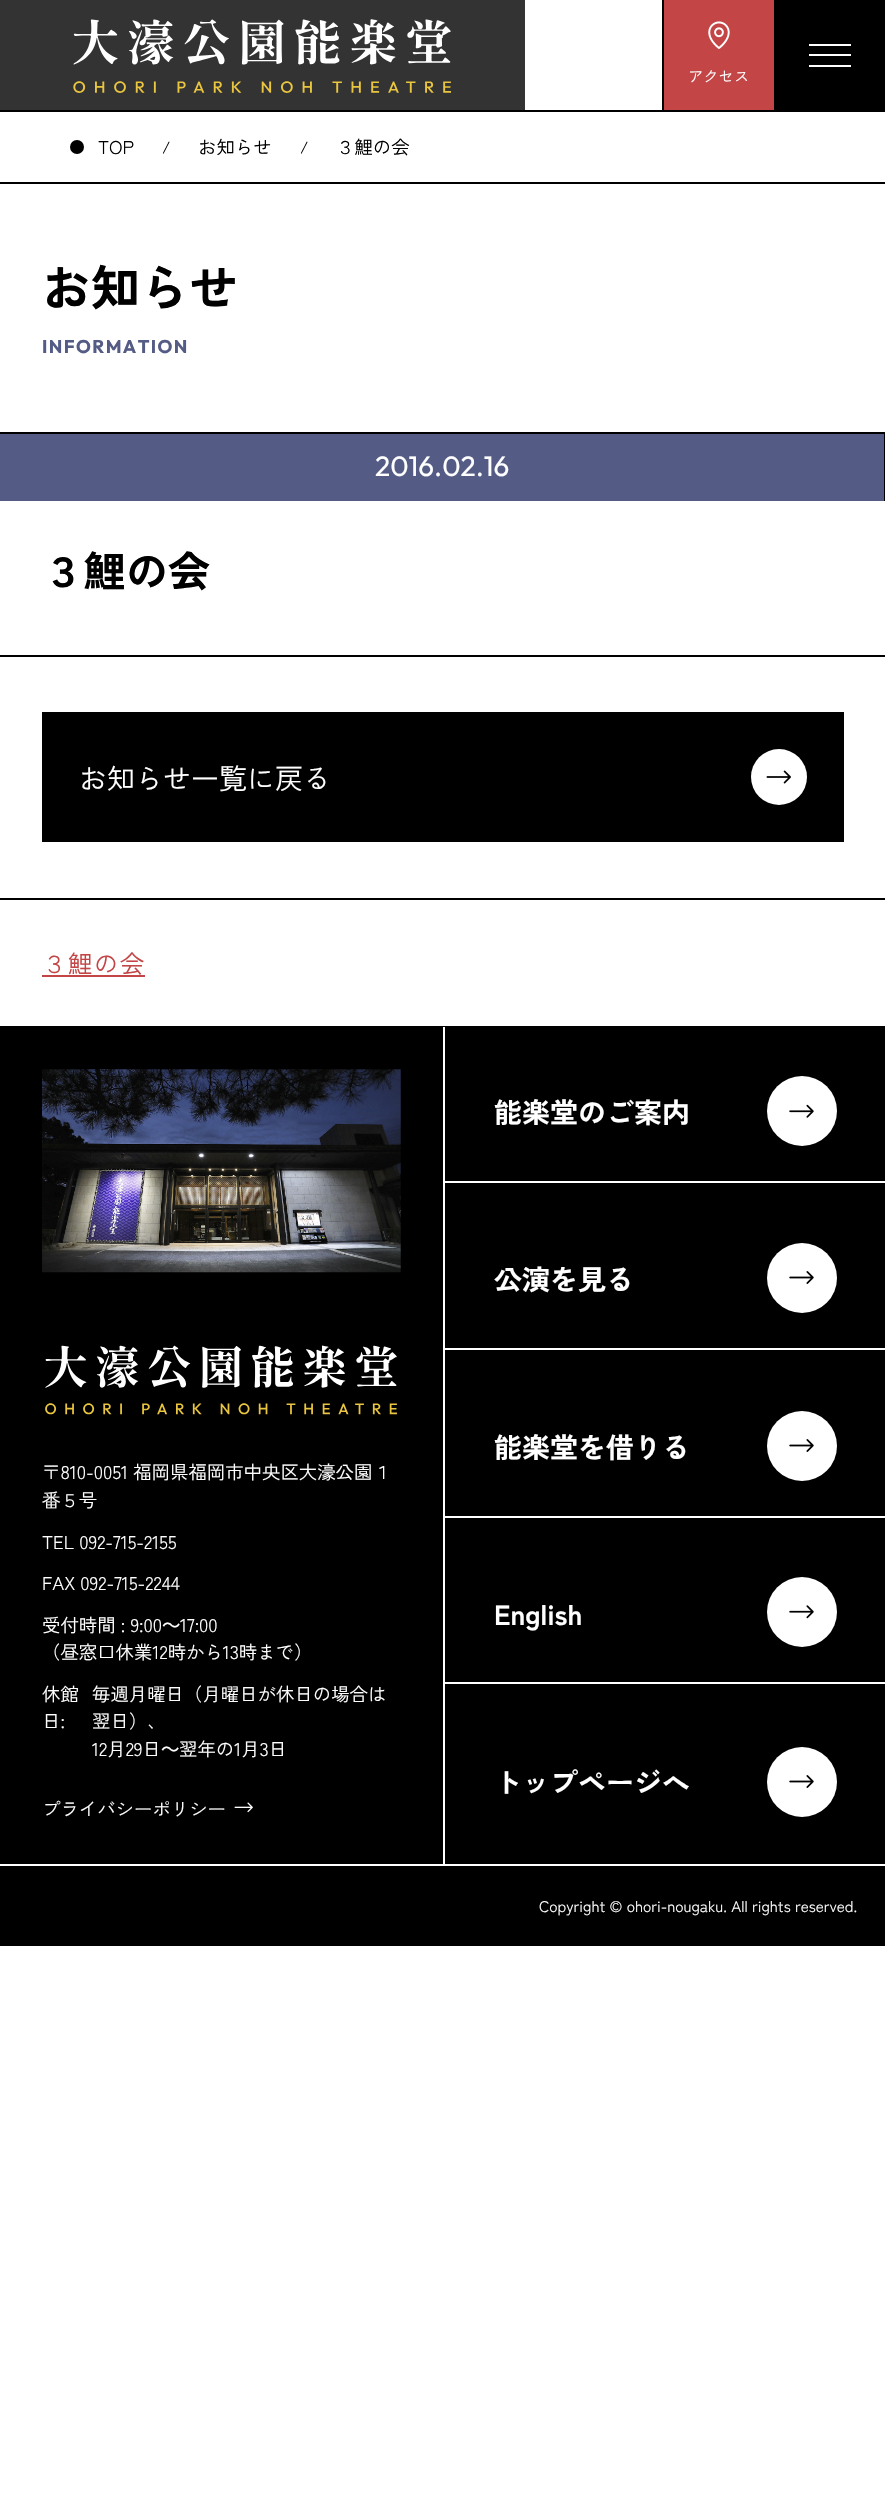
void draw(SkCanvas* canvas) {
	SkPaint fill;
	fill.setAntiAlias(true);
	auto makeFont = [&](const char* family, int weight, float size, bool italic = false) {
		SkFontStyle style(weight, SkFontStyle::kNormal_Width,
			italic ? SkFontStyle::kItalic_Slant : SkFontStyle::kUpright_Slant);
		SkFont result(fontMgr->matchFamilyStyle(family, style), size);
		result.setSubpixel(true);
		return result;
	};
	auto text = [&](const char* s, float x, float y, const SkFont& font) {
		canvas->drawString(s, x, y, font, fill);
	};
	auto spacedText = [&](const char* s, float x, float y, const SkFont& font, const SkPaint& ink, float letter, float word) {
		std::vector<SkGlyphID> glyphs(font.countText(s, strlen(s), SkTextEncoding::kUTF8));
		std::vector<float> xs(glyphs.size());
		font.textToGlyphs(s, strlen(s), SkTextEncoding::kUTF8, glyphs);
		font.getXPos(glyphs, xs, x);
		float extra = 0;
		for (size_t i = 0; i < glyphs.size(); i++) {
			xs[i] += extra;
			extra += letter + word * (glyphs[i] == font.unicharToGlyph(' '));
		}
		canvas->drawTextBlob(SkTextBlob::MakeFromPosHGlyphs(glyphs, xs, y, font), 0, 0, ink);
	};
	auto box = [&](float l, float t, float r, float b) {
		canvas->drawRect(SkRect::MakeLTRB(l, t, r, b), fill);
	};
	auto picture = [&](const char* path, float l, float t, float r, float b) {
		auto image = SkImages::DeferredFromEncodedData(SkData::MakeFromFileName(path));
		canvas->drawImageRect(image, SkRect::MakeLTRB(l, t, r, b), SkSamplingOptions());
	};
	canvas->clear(0xFFFFFFFF);
	fill.setColor(0xFF000000);
	box(0, 110, 885, 112);
	fill.setColor(0xFF333333);
	box(0, 0, 525, 110);
	picture("image0.png", 73, 19, 451, 93);
	fill.setColor(0xFFC44545);
	box(664, 0, 774, 110);
	fill.setColor(0xFF000000);
	box(662, 0, 664, 110);
	picture("image1.png", 708, 21, 730, 49);
	box(774, 0, 885, 110);
	fill.setColor(0xFFFFFFFF);
	box(809, 44, 851, 46);
	box(809, 54, 851, 56);
	box(809, 65, 851, 67);
	fill.setColor(0xFF000000);
	box(0, 182, 885, 184);
	canvas->drawCircle(77, 147, 7, fill);
	box(0, 432, 885, 434);
	fill.setColor(0xFF545C85);
	box(0, 434, 884, 501);
	fill.setColor(0xFF000000);
	box(884, 434, 885, 501);
	box(0, 655, 885, 657);
	box(0, 898, 885, 900);
	box(42, 712, 844, 842);
	fill.setColor(0xFFFFFFFF);
	canvas->drawCircle(779, 777, 28, fill);
	picture("image2.png", 766, 770, 791, 784);
	fill.setColor(0xFFC44545);
	box(42, 975, 145, 977);
	fill.setColor(0xFF000000);
	box(0, 1026, 885, 1946);
	picture("image3.png", 42, 1069, 401, 1273);
	picture("image4.png", 45, 1345, 397, 1415);
	picture("image5.png", 234, 1802, 253, 1813);
	fill.setColor(0xFFFFFFFF);
	box(443, 1027, 445, 1864);
	box(445, 1181, 885, 1183);
	canvas->drawCircle(802, 1111, 35, fill);
	picture("image6.png", 789, 1104, 814, 1118);
	box(445, 1348, 885, 1350);
	canvas->drawCircle(802, 1278, 35, fill);
	picture("image7.png", 789, 1271, 814, 1284);
	box(445, 1516, 885, 1518);
	canvas->drawCircle(802, 1446, 35, fill);
	picture("image7.png", 789, 1439, 814, 1452);
	box(445, 1682, 885, 1684);
	canvas->drawCircle(802, 1612, 35, fill);
	picture("image8.png", 789, 1605, 814, 1619);
	canvas->drawCircle(802, 1782, 35, fill);
	picture("image7.png", 789, 1775, 814, 1788);
	box(0, 1864, 885, 1866);
	auto font1 = makeFont("Zen Kaku Gothic New", 400, 15.3f);
	text("アクセス", 688, 82, font1);
	auto font2 = makeFont("Zen Kaku Gothic New", 400, 18.4f);
	fill.setColor(0xFF000000);
	text("TOP", 98, 154, font2);
	text("/", 162, 153, font1);
	text("お知らせ", 198, 154, font2);
	text("/", 300, 153, font1);
	text("３鯉の会", 336, 154, font2);
	auto font3 = makeFont("Zen Kaku Gothic New", 700, 49);
	text("お知らせ", 42, 306, font3);
	auto font4 = makeFont("Outfit", 700, 18.4f);
	fill.setColor(0xFF545C85);
	spacedText("INFORMATION", 42, 353, font4, fill, 1.4f, 0);
	auto font5 = makeFont("Outfit", 400, 28);
	fill.setColor(0xFFFFFFFF);
	text("2016.02.16", 375, 476, font5);
	auto font6 = makeFont("Zen Kaku Gothic New", 700, 42);
	fill.setColor(0xFF000000);
	text("３鯉の会", 42, 587, font6);
	auto font7 = makeFont("Zen Kaku Gothic New", 400, 28);
	fill.setColor(0xFFFFFFFF);
	text("お知らせ一覧に戻る", 79, 789, font7);
	auto font8 = makeFont("Zen Kaku Gothic New", 400, 24.5f);
	fill.setColor(0xFFC44545);
	spacedText("３鯉の会", 42, 973, font8, fill, 1.4f, 0);
	fill.setColor(0xFFFFFFFF);
	text("〒810-0051 福岡県福岡市中央区大濠公園１", 42, 1479, font2);
	text("番５号", 42, 1507, font2);
	text("TEL 092-715-2155", 42, 1549, font2);
	text("FAX 092-715-2244", 42, 1590, font2);
	text("受付時間 : 9:00", 42, 1632, font2);
	auto font9 = makeFont("Noto Sans JP", 400, 18.4f);
	text("～", 162, 1632, font9);
	text("17:00", 180, 1632, font2);
	text("（昼窓口休業12時から13時まで）", 42, 1659, font2);
	text("休館", 42, 1701, font2);
	text("日:", 42, 1728, font2);
	text("毎週月曜日（月曜日が休日の場合は", 92, 1701, font2);
	text("翌日）、", 92, 1728, font2);
	text("12月29日", 92, 1756, font2);
	text("～", 161, 1756, font9);
	text("翌年の1月3日", 179, 1756, font2);
	text("プライバシーポリシー", 42, 1816, font2);
	auto font10 = makeFont("Zen Kaku Gothic New", 700, 28);
	text("能楽堂のご案内", 494, 1123, font10);
	text("公演を見る", 494, 1290, font10);
	text("能楽堂を借りる", 494, 1458, font10);
	text("English", 494, 1625, font10);
	text("トップページへ", 494, 1793, font10);
	text("Copyright © ohori-nougaku. All rights reserved.", 539, 1912, font1);
}
